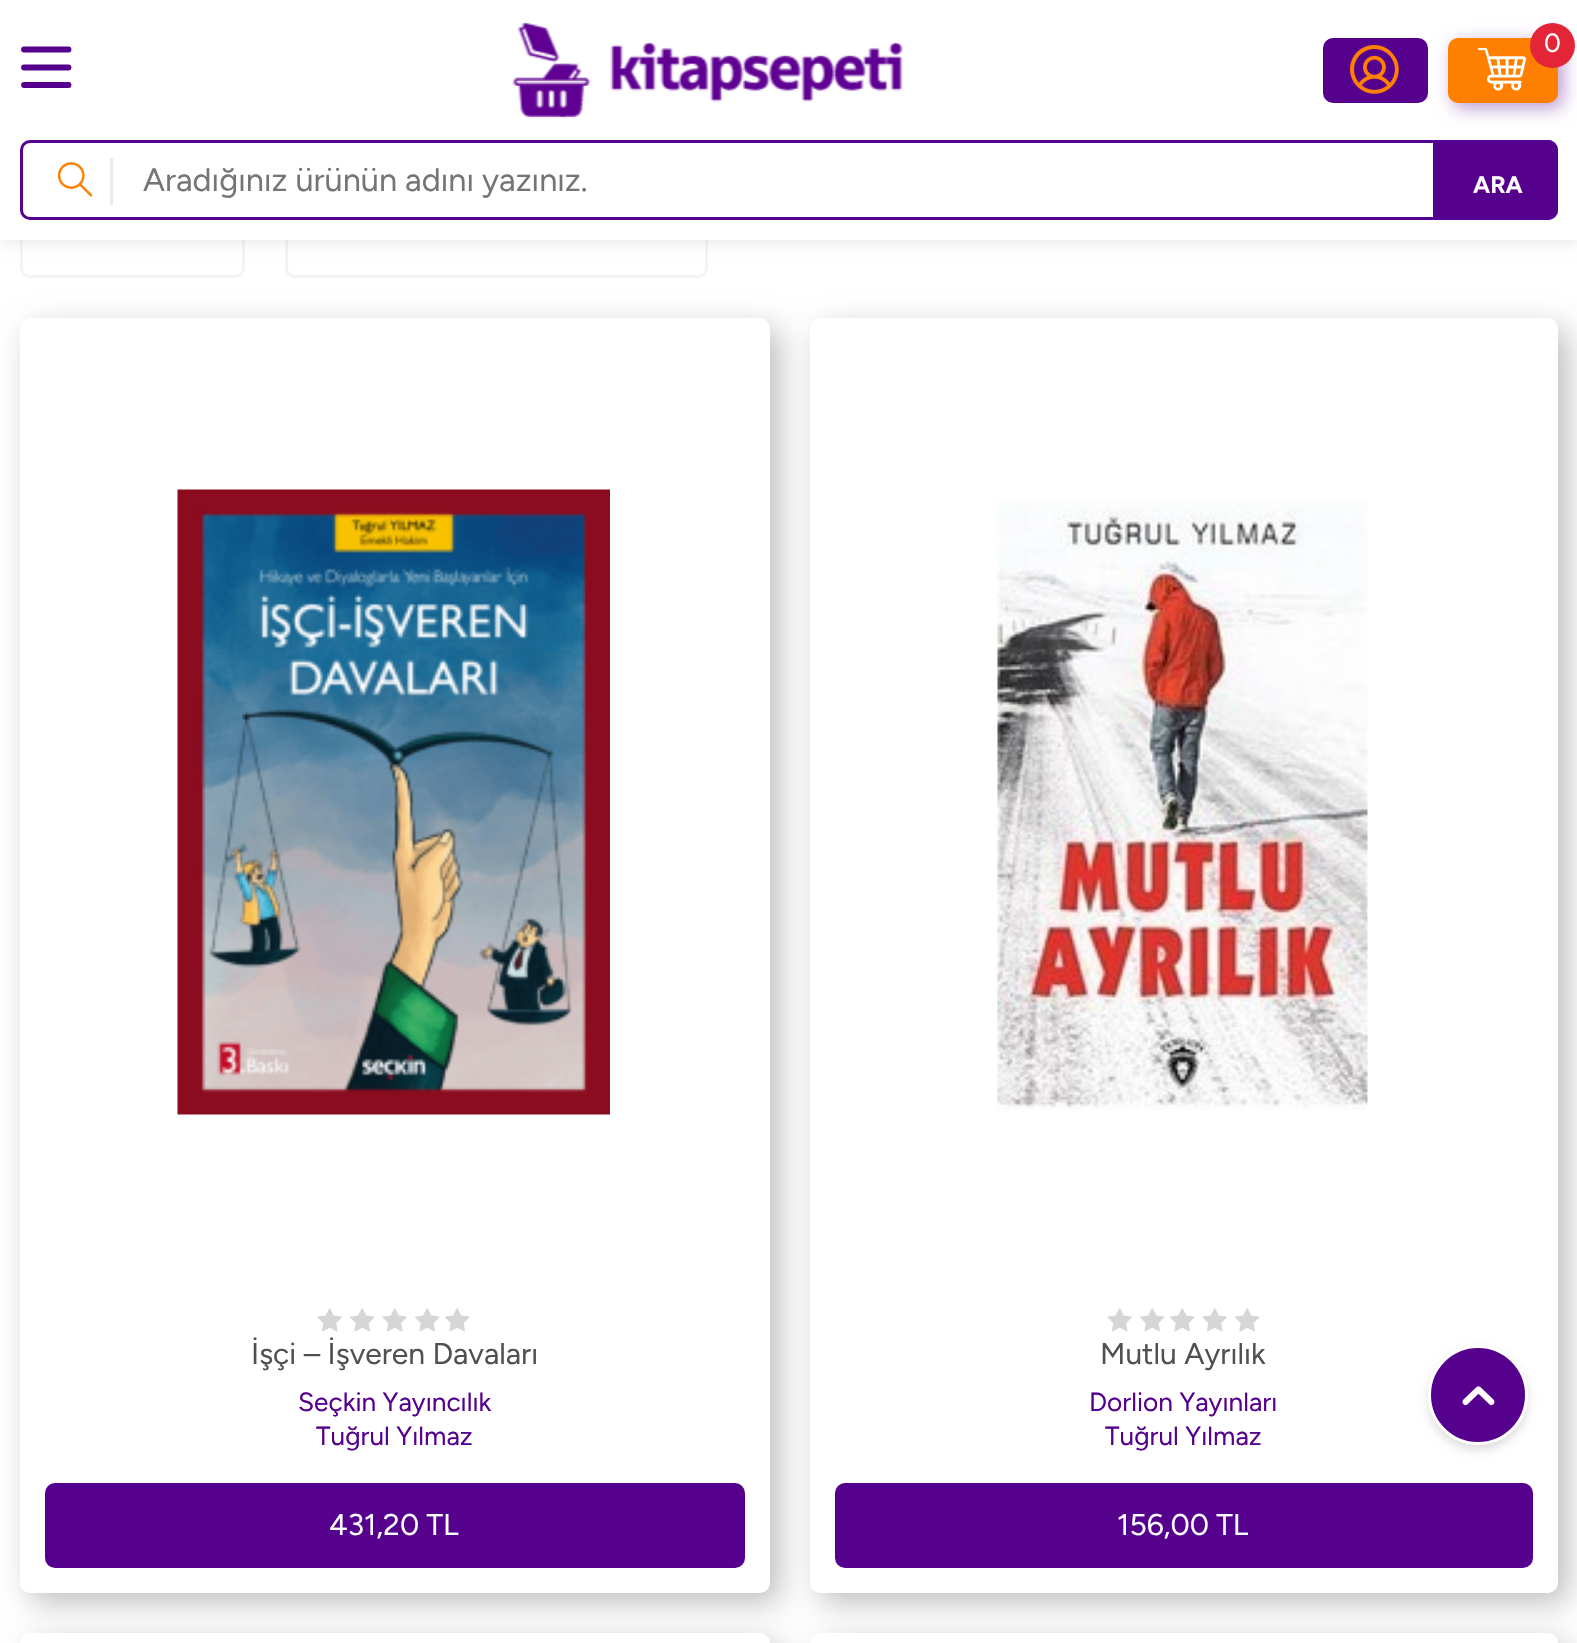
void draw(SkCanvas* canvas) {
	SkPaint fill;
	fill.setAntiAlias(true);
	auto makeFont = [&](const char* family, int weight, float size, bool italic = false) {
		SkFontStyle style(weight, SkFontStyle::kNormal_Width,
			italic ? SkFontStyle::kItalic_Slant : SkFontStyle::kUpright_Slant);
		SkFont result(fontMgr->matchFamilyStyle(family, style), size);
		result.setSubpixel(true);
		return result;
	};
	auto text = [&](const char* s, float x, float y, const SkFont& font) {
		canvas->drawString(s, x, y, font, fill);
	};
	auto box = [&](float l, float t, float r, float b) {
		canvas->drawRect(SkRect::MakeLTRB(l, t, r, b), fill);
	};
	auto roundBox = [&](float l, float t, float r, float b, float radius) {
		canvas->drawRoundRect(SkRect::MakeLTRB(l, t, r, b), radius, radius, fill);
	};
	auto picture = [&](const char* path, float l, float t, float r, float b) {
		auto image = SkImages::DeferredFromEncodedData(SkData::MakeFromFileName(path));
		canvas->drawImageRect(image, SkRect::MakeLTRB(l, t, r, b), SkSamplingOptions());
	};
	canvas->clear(0xFFFFFFFF);
	fill.setStyle(SkPaint::kStroke_Style);
	fill.setStrokeWidth(3);
	fill.setColor(0xFFF4F4F4);
	canvas->drawRoundRect(SkRect::MakeLTRB(21.5f, 194.5f, 243.5f, 276.5f), 8.5f, 8.5f, fill);
	canvas->drawRoundRect(SkRect::MakeLTRB(286.5f, 194.5f, 706.5f, 276.5f), 8.5f, 8.5f, fill);
	fill.setStyle(SkPaint::kFill_Style);
	fill.setColor(0x0F000000);
	fill.setMaskFilter(SkMaskFilter::MakeBlur(kNormal_SkBlurStyle, 5));
	canvas->drawRect(SkRect::MakeLTRB(0, 5, 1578, 245), fill);
	fill.setMaskFilter(nullptr);
	fill.setColor(0xFFFFFFFF);
	box(0, 0, 1577, 240);
	picture("image0.png", 512, 22, 903, 119);
	fill.setColor(0xFF56008E);
	roundBox(1323, 38, 1428, 103, 10);
	picture("image1.png", 1350, 45, 1399, 94);
	fill.setColor(0x6656008E);
	fill.setMaskFilter(SkMaskFilter::MakeBlur(kNormal_SkBlurStyle, 9));
	canvas->drawRoundRect(SkRect::MakeLTRB(1453, 43, 1563, 108), 10, 10, fill);
	fill.setMaskFilter(nullptr);
	fill.setColor(0xFFFF8000);
	roundBox(1448, 38, 1558, 103, 10);
	fill.setColor(0xFFE42437);
	canvas->drawCircle(1552.5f, 45.5f, 22.5f, fill);
	picture("image2.png", 1478, 48, 1526, 91);
	fill.setStyle(SkPaint::kStroke_Style);
	fill.setStrokeWidth(5.8f);
	fill.setStrokeCap(SkPaint::kRound_Cap);
	fill.setColor(0xFF56008E);
	canvas->drawPath(SkPathBuilder().moveTo(24, 49.5f).lineTo(68.5f, 49.5f).moveTo(24, 67.5f).lineTo(68.5f, 67.5f).moveTo(24, 85).lineTo(68.5f, 85).detach(), fill);
	fill.setStrokeWidth(3);
	fill.setStrokeCap(SkPaint::kButt_Cap);
	canvas->drawRoundRect(SkRect::MakeLTRB(21.5f, 141.5f, 1556.5f, 218.5f), 8.5f, 8.5f, fill);
	fill.setStyle(SkPaint::kFill_Style);
	fill.setColor(0xFFEAEAEA);
	box(110, 158, 113, 205);
	picture("image3.png", 57, 162, 93, 197);
	fill.setColor(0xFF56008E);
	canvas->drawPath(SkPathBuilder().moveTo(1434.5f, 141.5f).lineTo(1548, 141.5f).cubicTo(1552.5f, 141.5f, 1556.5f, 145.5f, 1556.5f, 150).lineTo(1556.5f, 210).cubicTo(1556.5f, 214.5f, 1552.5f, 218.5f, 1548, 218.5f).lineTo(1434.5f, 218.5f).close().detach(), fill);
	fill.setStyle(SkPaint::kStroke_Style);
	canvas->drawPath(SkPathBuilder().moveTo(1434.5f, 141.5f).lineTo(1548, 141.5f).cubicTo(1552.5f, 141.5f, 1556.5f, 145.5f, 1556.5f, 150).lineTo(1556.5f, 210).cubicTo(1556.5f, 214.5f, 1552.5f, 218.5f, 1548, 218.5f).lineTo(1434.5f, 218.5f).close().detach(), fill);
	fill.setStyle(SkPaint::kFill_Style);
	fill.setColor(0x40000000);
	fill.setMaskFilter(SkMaskFilter::MakeBlur(kNormal_SkBlurStyle, 15));
	canvas->drawRoundRect(SkRect::MakeLTRB(30, 328, 780, 1603), 10, 10, fill);
	fill.setMaskFilter(nullptr);
	fill.setMaskFilter(SkMaskFilter::MakeBlur(kNormal_SkBlurStyle, 15));
	canvas->drawRoundRect(SkRect::MakeLTRB(820, 328, 1568, 1603), 10, 10, fill);
	fill.setMaskFilter(nullptr);
	fill.setColor(0xFFFFFFFF);
	roundBox(810, 318, 1558, 1593, 10);
	fill.setColor(0x21000000);
	fill.setMaskFilter(SkMaskFilter::MakeBlur(kNormal_SkBlurStyle, 5));
	canvas->drawRoundRect(SkRect::MakeLTRB(1428, 1350, 1528, 1450), 50, 50, fill);
	fill.setMaskFilter(nullptr);
	fill.setColor(0xFF56008E);
	canvas->drawCircle(1478, 1395, 48.5f, fill);
	fill.setStyle(SkPaint::kStroke_Style);
	fill.setColor(0xFFFFFFFF);
	canvas->drawCircle(1478, 1395, 48.5f, fill);
	picture("image4.png", 1462, 1386, 1495, 1406);
	fill.setStyle(SkPaint::kFill_Style);
	roundBox(20, 318, 770, 1593, 10);
	picture("image5.png", 177, 489, 610, 1115);
	picture("image6.png", 317, 1308, 342, 1332);
	picture("image7.png", 350, 1308, 375, 1332);
	picture("image6.png", 382, 1308, 407, 1332);
	picture("image7.png", 415, 1308, 440, 1332);
	picture("image7.png", 445, 1308, 470, 1332);
	fill.setColor(0xFF56008E);
	roundBox(45, 1483, 745, 1568, 10);
	picture("image8.png", 997, 500, 1368, 1110);
	picture("image6.png", 1107, 1308, 1132, 1332);
	picture("image7.png", 1140, 1308, 1165, 1332);
	picture("image7.png", 1170, 1308, 1195, 1332);
	picture("image6.png", 1202, 1308, 1227, 1332);
	picture("image7.png", 1235, 1308, 1260, 1332);
	roundBox(835, 1483, 1533, 1568, 10);
	fill.setColor(0x40000000);
	fill.setMaskFilter(SkMaskFilter::MakeBlur(kNormal_SkBlurStyle, 15));
	canvas->drawRoundRect(SkRect::MakeLTRB(30, 1643, 780, 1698), 10, 10, fill);
	fill.setMaskFilter(nullptr);
	fill.setColor(0xFFFFFFFF);
	roundBox(20, 1633, 770, 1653, 10);
	fill.setColor(0x40000000);
	fill.setMaskFilter(SkMaskFilter::MakeBlur(kNormal_SkBlurStyle, 15));
	canvas->drawRoundRect(SkRect::MakeLTRB(820, 1643, 1568, 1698), 10, 10, fill);
	fill.setMaskFilter(nullptr);
	fill.setColor(0xFFFFFFFF);
	roundBox(810, 1633, 1558, 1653, 10);
	auto font1 = makeFont("Figtree", 400, 26.25f);
	text("0", 1544, 52, font1);
	auto font2 = makeFont("Figtree", 400, 32.5f);
	fill.setColor(0xFF757575);
	text("Aradığınız ürünün adını yazınız.", 143, 191, font2);
	auto font3 = makeFont("Figtree", 700, 24);
	fill.setColor(0xFFFFFFFF);
	text("ARA", 1473, 193, font3);
	auto font4 = makeFont("Figtree", 400, 30);
	fill.setColor(0xFF505050);
	text("İşçi – İşveren Davaları", 251, 1364, font4);
	fill.setColor(0xFF56008E);
	text("Seçkin Yayıncılık", 298, 1411, font1);
	text("Tuğrul Yılmaz", 316, 1445, font1);
	fill.setColor(0xFFFFFFFF);
	text("431,20 TL", 329, 1535, font4);
	fill.setColor(0xFF505050);
	text("Mutlu Ayrılık", 1100, 1364, font4);
	fill.setColor(0xFF56008E);
	text("Dorlion Yayınları", 1089, 1411, font1);
	text("Tuğrul Yılmaz", 1105, 1445, font1);
	fill.setColor(0xFFFFFFFF);
	text("156,00 TL", 1117, 1535, font4);
}
